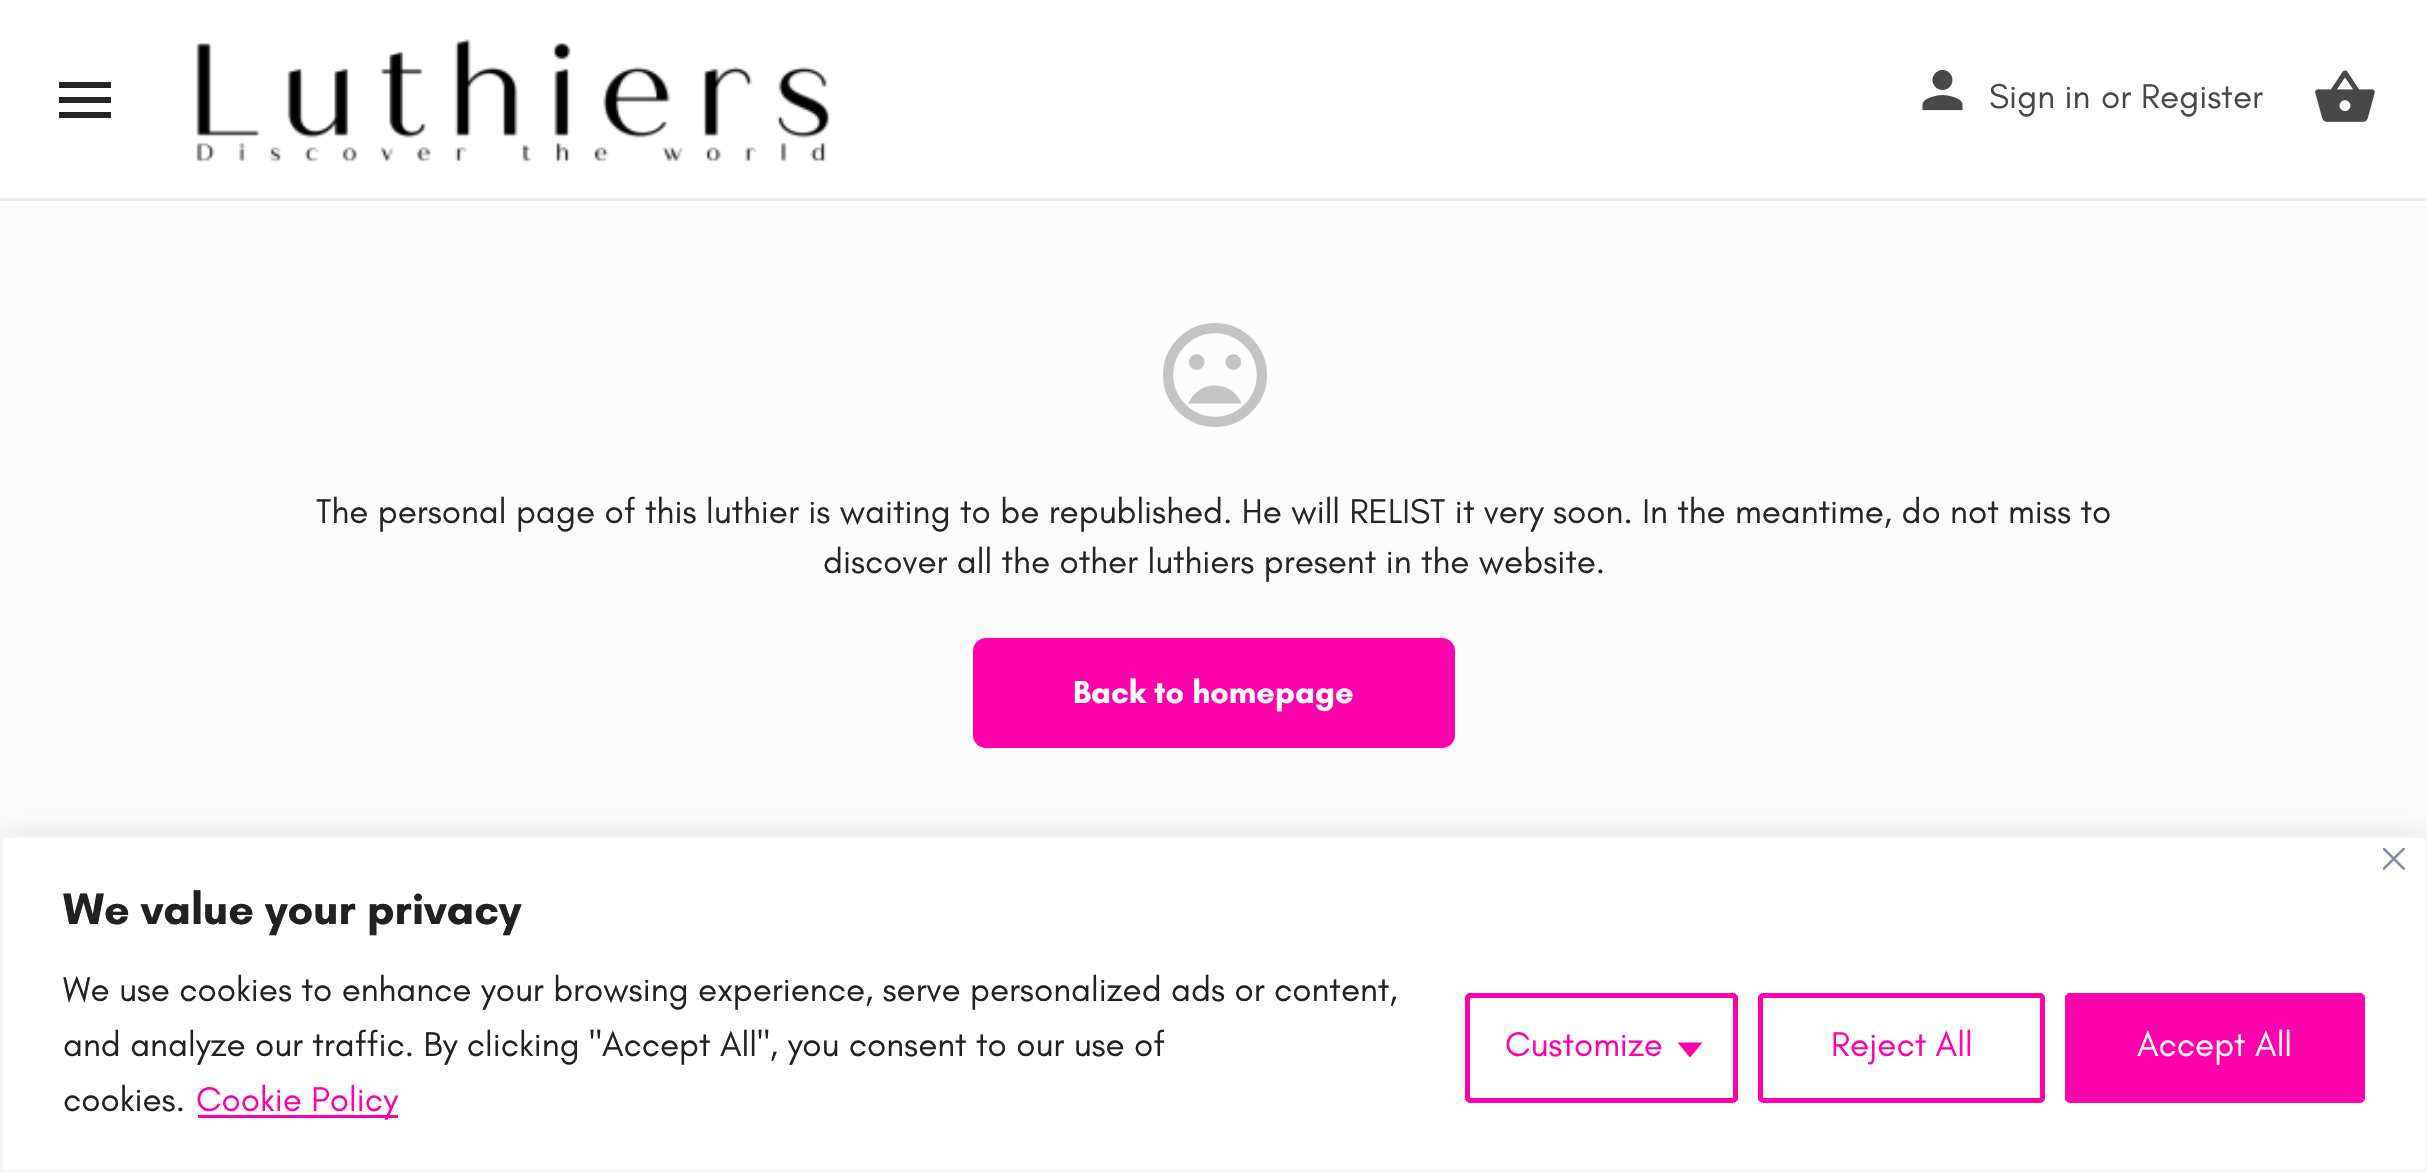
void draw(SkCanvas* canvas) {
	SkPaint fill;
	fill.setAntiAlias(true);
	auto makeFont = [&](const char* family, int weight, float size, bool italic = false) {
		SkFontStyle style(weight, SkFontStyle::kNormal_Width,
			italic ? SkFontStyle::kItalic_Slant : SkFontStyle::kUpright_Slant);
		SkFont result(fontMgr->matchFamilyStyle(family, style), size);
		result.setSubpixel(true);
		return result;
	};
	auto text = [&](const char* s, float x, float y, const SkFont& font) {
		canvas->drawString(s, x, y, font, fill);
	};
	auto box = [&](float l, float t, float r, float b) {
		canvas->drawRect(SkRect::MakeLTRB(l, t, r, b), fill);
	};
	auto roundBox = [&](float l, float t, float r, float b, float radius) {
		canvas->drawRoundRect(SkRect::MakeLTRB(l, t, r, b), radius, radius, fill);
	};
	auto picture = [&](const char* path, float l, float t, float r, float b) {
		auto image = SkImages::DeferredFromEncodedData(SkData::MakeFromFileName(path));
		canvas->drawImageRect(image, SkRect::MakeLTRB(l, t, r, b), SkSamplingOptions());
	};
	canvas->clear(0xFFFCFCFC);
	fill.setColor(0xFFFFFFFF);
	box(0, 0, 2427, 198);
	fill.setColor(0xFFEBEBEB);
	box(0, 198, 2427, 201);
	fill.setColor(0xFF242429);
	canvas->drawPath(SkPathBuilder().moveTo(59, 82).lineTo(111, 82).lineTo(111, 88).lineTo(59, 88).close().moveTo(59, 103).lineTo(59, 97).lineTo(111, 97).lineTo(111, 103).close().moveTo(59, 118).lineTo(59, 112).lineTo(111, 112).lineTo(111, 118).close().detach(), fill);
	picture("image0.png", 196, 39, 831, 163);
	picture("image1.png", 1922, 70, 1963, 111);
	picture("image2.png", 2315, 70, 2375, 122);
	picture("image3.png", 1163, 323, 1267, 427);
	fill.setColor(0xFFFF00AA);
	roundBox(973, 638, 1455, 748, 13);
	fill.setColor(0x4DACABAB);
	fill.setMaskFilter(SkMaskFilter::MakeBlur(kNormal_SkBlurStyle, 12.5f));
	canvas->drawRect(SkRect::MakeLTRB(0, 833, 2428, 1170), fill);
	fill.setMaskFilter(nullptr);
	fill.setColor(0xFFFFFFFF);
	canvas->drawRect(SkRect::MakeLTRB(1.5f, 836.5f, 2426.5f, 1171.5f), fill);
	fill.setStyle(SkPaint::kStroke_Style);
	fill.setStrokeWidth(3);
	fill.setColor(0xFFF4F4F4);
	canvas->drawRect(SkRect::MakeLTRB(1.5f, 836.5f, 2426.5f, 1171.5f), fill);
	picture("image4.png", 2383, 848, 2405, 870);
	fill.setStyle(SkPaint::kFill_Style);
	fill.setColor(0xFFFF00AA);
	box(198, 1115, 398, 1118);
	fill.setStyle(SkPaint::kStroke_Style);
	fill.setStrokeWidth(5);
	canvas->drawRoundRect(SkRect::MakeLTRB(1467.5f, 995.5f, 1735.5f, 1100.5f), 2.5f, 2.5f, fill);
	fill.setStyle(SkPaint::kFill_Style);
	canvas->drawPath(SkPathBuilder().moveTo(1677.5f, 1042.5f).lineTo(1702.5f, 1042.5f).lineTo(1690, 1057.5f).close().detach(), fill);
	fill.setStyle(SkPaint::kStroke_Style);
	canvas->drawRoundRect(SkRect::MakeLTRB(1760.5f, 995.5f, 2042.5f, 1100.5f), 2.5f, 2.5f, fill);
	fill.setStyle(SkPaint::kFill_Style);
	canvas->drawRoundRect(SkRect::MakeLTRB(2067.5f, 995.5f, 2362.5f, 1100.5f), 2.5f, 2.5f, fill);
	fill.setStyle(SkPaint::kStroke_Style);
	canvas->drawRoundRect(SkRect::MakeLTRB(2067.5f, 995.5f, 2362.5f, 1100.5f), 2.5f, 2.5f, fill);
	auto font1 = makeFont("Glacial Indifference", 400, 35);
	fill.setStyle(SkPaint::kFill_Style);
	fill.setColor(0xFF484848);
	text("Sign in", 1989, 108, font1);
	text("or", 2101, 108, font1);
	text("Register", 2141, 108, font1);
	fill.setColor(0xFF242429);
	text("The personal page of this luthier is waiting to be republished. He will RELIST it very soon. In the meantime, do not miss to", 316, 523, font1);
	text("discover all the other luthiers present in the website.", 823, 573, font1);
	auto font2 = makeFont("Glacial Indifference", 700, 32.5f);
	fill.setColor(0xFFFFFFFF);
	text("Back to homepage", 1073, 703, font2);
	auto font3 = makeFont("Glacial Indifference", 700, 45);
	fill.setColor(0xFF212121);
	text("We value your privacy", 63, 924, font3);
	text("We use cookies to enhance your browsing experience, serve personalized ads or content,", 63, 1001, font1);
	text("and analyze our traffic. By clicking \"Accept All\", you consent to our use of", 63, 1056, font1);
	text("cookies.", 63, 1111, font1);
	fill.setColor(0xFFFF00AA);
	text("Cookie Policy", 196, 1111, font1);
	text("Customize", 1505, 1056, font1);
	text("Reject All", 1831, 1056, font1);
	fill.setColor(0xFFFFFFFF);
	text("Accept All", 2137, 1056, font1);
}
